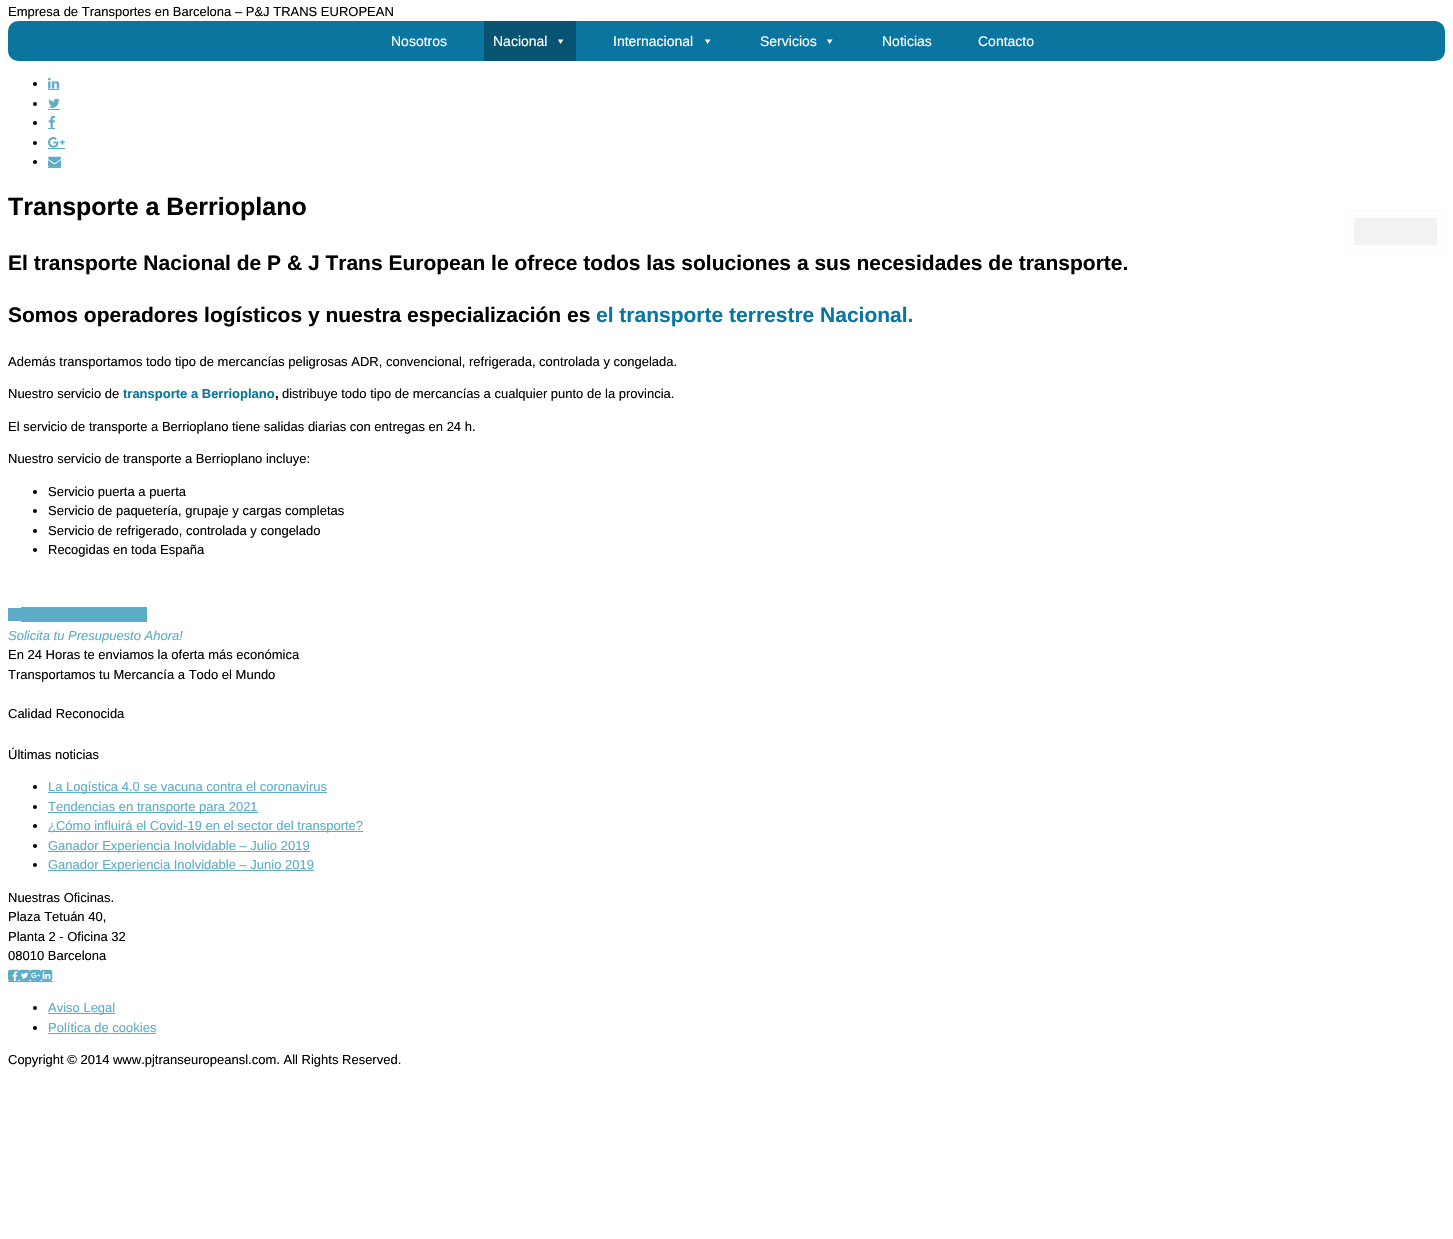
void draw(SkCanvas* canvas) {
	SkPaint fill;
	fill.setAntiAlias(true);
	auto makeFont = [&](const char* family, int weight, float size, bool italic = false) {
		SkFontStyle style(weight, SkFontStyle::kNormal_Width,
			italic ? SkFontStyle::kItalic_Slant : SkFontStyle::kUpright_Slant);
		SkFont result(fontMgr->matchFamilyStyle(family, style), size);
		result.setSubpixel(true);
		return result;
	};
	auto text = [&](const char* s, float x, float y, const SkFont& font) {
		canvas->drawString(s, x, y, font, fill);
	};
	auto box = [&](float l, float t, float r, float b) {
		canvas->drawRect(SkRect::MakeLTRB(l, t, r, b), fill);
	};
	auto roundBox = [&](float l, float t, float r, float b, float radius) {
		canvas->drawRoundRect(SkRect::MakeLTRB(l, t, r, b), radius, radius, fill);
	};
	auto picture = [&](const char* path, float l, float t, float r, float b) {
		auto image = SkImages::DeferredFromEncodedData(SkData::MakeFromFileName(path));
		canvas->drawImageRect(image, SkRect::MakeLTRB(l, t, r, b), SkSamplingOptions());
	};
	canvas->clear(0xFFFFFFFF);
	fill.setColor(0xFF0A76A0);
	roundBox(8, 21, 1445, 61, 10);
	fill.setColor(0xFF065372);
	box(484, 21, 576, 61);
	fill.setColor(0xFFFFFFFF);
	canvas->drawPath(SkPathBuilder().moveTo(563.5f, 39.5f).lineTo(560.5f, 44).lineTo(558, 39.5f).close().detach(), fill);
	canvas->drawPath(SkPathBuilder().moveTo(710.5f, 39.5f).lineTo(707.5f, 44).lineTo(705, 39.5f).close().detach(), fill);
	canvas->drawPath(SkPathBuilder().moveTo(832.5f, 39.5f).lineTo(829.5f, 44).lineTo(827, 39.5f).close().detach(), fill);
	fill.setColor(0xFF000000);
	canvas->drawCircle(35, 84, 2, fill);
	fill.setColor(0xFF5DADC9);
	box(48, 89, 59, 90);
	picture("image0.png", 48, 77, 60, 89);
	fill.setColor(0xFF000000);
	canvas->drawCircle(35, 104, 2, fill);
	fill.setColor(0xFF5DADC9);
	box(48, 109, 60, 110);
	picture("image1.png", 48, 98, 60, 108);
	fill.setColor(0xFF000000);
	canvas->drawCircle(35, 123, 2, fill);
	fill.setColor(0xFF5DADC9);
	box(48, 128, 55, 129);
	picture("image2.png", 48, 115, 55, 128);
	fill.setColor(0xFF000000);
	canvas->drawCircle(35, 143, 2, fill);
	fill.setColor(0xFF5DADC9);
	box(48, 148, 65, 149);
	picture("image3.png", 48, 137, 65, 148);
	fill.setColor(0xFF000000);
	canvas->drawCircle(35, 162, 2, fill);
	fill.setColor(0xFF5DADC9);
	box(48, 167, 61, 168);
	picture("image4.png", 48, 156, 61, 167);
	fill.setStyle(SkPaint::kStroke_Style);
	fill.setStrokeWidth(1);
	fill.setColor(0xFFFAFAFA);
	canvas->drawRect(SkRect::MakeLTRB(1346.5f, 210.5f, 1444.5f, 252.5f), fill);
	fill.setStyle(SkPaint::kFill_Style);
	fill.setColor(0xFFF2F2F2);
	box(1354, 218, 1437, 245);
	fill.setColor(0xFF000000);
	canvas->drawCircle(35, 492, 2, fill);
	canvas->drawCircle(35, 511, 2, fill);
	canvas->drawCircle(35, 531, 2, fill);
	canvas->drawCircle(35, 550, 2, fill);
	fill.setColor(0xFF5DADC9);
	box(8, 608, 21, 621);
	box(21, 607, 147, 622);
	fill.setColor(0xFF000000);
	canvas->drawCircle(35, 787, 2, fill);
	fill.setColor(0xFF5DADC9);
	box(48, 792, 327, 793);
	fill.setColor(0xFF000000);
	canvas->drawCircle(35, 807, 2, fill);
	fill.setColor(0xFF5DADC9);
	box(48, 812, 258, 813);
	fill.setColor(0xFF000000);
	canvas->drawCircle(35, 826, 2, fill);
	fill.setColor(0xFF5DADC9);
	box(48, 831, 363, 832);
	fill.setColor(0xFF000000);
	canvas->drawCircle(35, 846, 2, fill);
	fill.setColor(0xFF5DADC9);
	box(48, 851, 310, 852);
	fill.setColor(0xFF000000);
	canvas->drawCircle(35, 865, 2, fill);
	fill.setColor(0xFF5DADC9);
	box(48, 870, 314, 871);
	box(8, 981, 53, 982);
	picture("image5.png", 8, 969, 20, 981);
	picture("image6.png", 19, 969, 31, 981);
	picture("image7.png", 30, 969, 42, 981);
	picture("image8.png", 41, 969, 53, 981);
	fill.setColor(0xFF000000);
	canvas->drawCircle(35, 1008, 2, fill);
	fill.setColor(0xFF5DADC9);
	box(48, 1013, 115, 1014);
	fill.setColor(0xFF000000);
	canvas->drawCircle(35, 1028, 2, fill);
	fill.setColor(0xFF5DADC9);
	box(48, 1033, 156, 1034);
	auto font1 = makeFont("Liberation Sans", 400, 13);
	fill.setColor(0xFF000000);
	text("Empresa de Transportes en Barcelona – P&J TRANS EUROPEAN", 8, 16, font1);
	auto font2 = makeFont("Liberation Sans", 400, 14);
	fill.setColor(0xFFFFFFFF);
	text("Nosotros", 391, 46, font2);
	text("Nacional", 493, 46, font2);
	text("Internacional", 613, 46, font2);
	text("Servicios", 760, 46, font2);
	text("Noticias", 882, 46, font2);
	text("Contacto", 978, 46, font2);
	auto font3 = makeFont("Liberation Sans", 700, 25);
	fill.setColor(0xFF000000);
	text("Transporte a Berrioplano", 8, 215, font3);
	auto font4 = makeFont("Liberation Sans", 700, 21);
	text("El transporte Nacional de P & J Trans European le ofrece todos las soluciones a sus necesidades de transporte.", 8, 270, font4);
	text("Somos operadores logísticos y nuestra especialización es", 8, 322, font4);
	fill.setColor(0xFF0A76A0);
	text("el transporte terrestre Nacional.", 596, 322, font4);
	fill.setColor(0xFF000000);
	text("Además transportamos todo tipo de mercancías peligrosas ADR, convencional, refrigerada, controlada y congelada.", 8, 366, font1);
	text("Nuestro servicio de", 8, 398, font1);
	auto font5 = makeFont("Liberation Sans", 700, 13);
	fill.setColor(0xFF0A76A0);
	text("transporte a Berrioplano", 123, 398, font5);
	fill.setColor(0xFF000000);
	text(",", 275, 398, font5);
	text("distribuye todo tipo de mercancías a cualquier punto de la provincia.", 282, 398, font1);
	text("El servicio de transporte a Berrioplano tiene salidas diarias con entregas en 24 h.", 8, 431, font1);
	text("Nuestro servicio de transporte a Berrioplano incluye:", 8, 463, font1);
	text("Servicio puerta a puerta", 48, 496, font1);
	text("Servicio de paquetería, grupaje y cargas completas", 48, 515, font1);
	text("Servicio de refrigerado, controlada y congelado", 48, 535, font1);
	text("Recogidas en toda España", 48, 554, font1);
	auto font6 = makeFont("Liberation Sans", 400, 13, true);
	fill.setColor(0xFF5DADC9);
	text("Solicita tu Presupuesto Ahora!", 8, 640, font6);
	fill.setColor(0xFF000000);
	text("En 24 Horas te enviamos la oferta más económica", 8, 659, font1);
	text("Transportamos tu Mercancía a Todo el Mundo", 8, 679, font1);
	text("Calidad Reconocida", 8, 718, font1);
	text("Últimas noticias", 8, 759, font1);
	fill.setColor(0xFF5DADC9);
	text("La Logística 4.0 se vacuna contra el coronavirus", 48, 791, font1);
	text("Tendencias en transporte para 2021", 48, 811, font1);
	text("¿Cómo influirá el Covid-19 en el sector del transporte?", 48, 830, font1);
	text("Ganador Experiencia Inolvidable – Julio 2019", 48, 850, font1);
	text("Ganador Experiencia Inolvidable – Junio 2019", 48, 869, font1);
	fill.setColor(0xFF000000);
	text("Nuestras Oficinas.", 8, 902, font1);
	text("Plaza Tetuán 40,", 8, 921, font1);
	text("Planta 2 - Oficina 32", 8, 941, font1);
	text("08010 Barcelona", 8, 960, font1);
	fill.setColor(0xFF5DADC9);
	text("Aviso Legal", 48, 1012, font1);
	text("Política de cookies", 48, 1032, font1);
	fill.setColor(0xFF000000);
	text("Copyright © 2014 www.pjtranseuropeansl.com. All Rights Reserved.", 8, 1064, font1);
}
